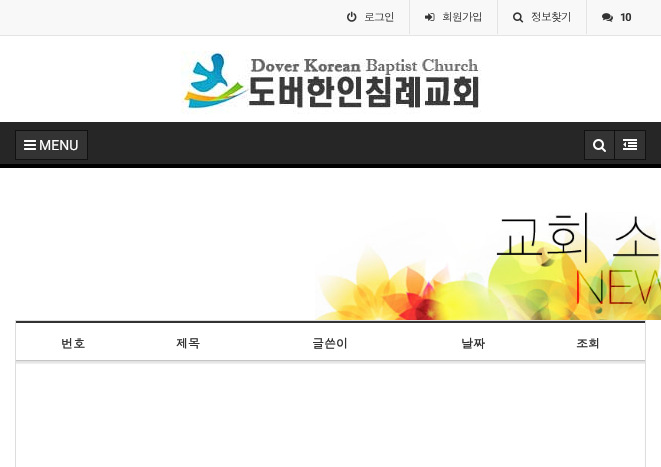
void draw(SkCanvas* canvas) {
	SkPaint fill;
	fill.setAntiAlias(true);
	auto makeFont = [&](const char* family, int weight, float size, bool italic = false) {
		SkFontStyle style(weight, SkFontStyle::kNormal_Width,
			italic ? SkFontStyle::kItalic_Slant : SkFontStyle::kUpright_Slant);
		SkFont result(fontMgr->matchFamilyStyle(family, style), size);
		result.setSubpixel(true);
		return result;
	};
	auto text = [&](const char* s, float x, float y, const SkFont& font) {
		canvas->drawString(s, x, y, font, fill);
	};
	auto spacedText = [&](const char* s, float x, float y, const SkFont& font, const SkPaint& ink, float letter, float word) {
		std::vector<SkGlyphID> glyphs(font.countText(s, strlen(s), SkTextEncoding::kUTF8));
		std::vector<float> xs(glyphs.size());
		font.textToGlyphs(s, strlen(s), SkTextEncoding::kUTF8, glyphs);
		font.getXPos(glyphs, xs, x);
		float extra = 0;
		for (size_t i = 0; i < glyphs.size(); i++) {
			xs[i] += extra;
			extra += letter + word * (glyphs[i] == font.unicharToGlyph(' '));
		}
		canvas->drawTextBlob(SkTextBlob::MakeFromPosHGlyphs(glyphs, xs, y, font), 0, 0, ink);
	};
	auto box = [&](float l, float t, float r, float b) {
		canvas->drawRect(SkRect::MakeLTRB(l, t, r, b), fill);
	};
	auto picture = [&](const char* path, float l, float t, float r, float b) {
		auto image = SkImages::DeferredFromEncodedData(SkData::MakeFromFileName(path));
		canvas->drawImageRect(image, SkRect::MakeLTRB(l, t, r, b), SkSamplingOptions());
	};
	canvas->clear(0xFFFFFFFF);
	fill.setColor(0xFFF8F8F8);
	box(0, 0, 661, 35);
	fill.setColor(0xFFE4E4E4);
	box(0, 35, 661, 36);
	box(409, 0, 410, 34);
	picture("image0.png", 347, 11, 357, 22);
	box(497, 0, 498, 34);
	picture("image1.png", 425, 13, 435, 21);
	box(586, 0, 587, 34);
	picture("image2.png", 513, 12, 524, 23);
	picture("image3.png", 602, 13, 613, 22);
	picture("image4.png", 181, 51, 481, 114);
	fill.setColor(0xFF262626);
	box(0, 122, 661, 164);
	fill.setColor(0xFF333333);
	canvas->drawRect(SkRect::MakeLTRB(15.5f, 130.5f, 87.5f, 159.5f), fill);
	fill.setStyle(SkPaint::kStroke_Style);
	fill.setStrokeWidth(1);
	fill.setColor(0xFF111111);
	canvas->drawRect(SkRect::MakeLTRB(15.5f, 130.5f, 87.5f, 159.5f), fill);
	picture("image5.png", 24, 140, 36, 150);
	fill.setStyle(SkPaint::kFill_Style);
	fill.setColor(0xFF333333);
	canvas->drawRect(SkRect::MakeLTRB(584.5f, 130.5f, 614.5f, 159.5f), fill);
	fill.setStyle(SkPaint::kStroke_Style);
	fill.setColor(0xFF111111);
	canvas->drawRect(SkRect::MakeLTRB(584.5f, 130.5f, 614.5f, 159.5f), fill);
	picture("image6.png", 593, 139, 606, 152);
	fill.setStyle(SkPaint::kFill_Style);
	fill.setColor(0xFF333333);
	canvas->drawRect(SkRect::MakeLTRB(614.5f, 130.5f, 645.5f, 159.5f), fill);
	fill.setStyle(SkPaint::kStroke_Style);
	fill.setColor(0xFF111111);
	canvas->drawRect(SkRect::MakeLTRB(614.5f, 130.5f, 645.5f, 159.5f), fill);
	picture("image7.png", 623, 139, 637, 150);
	fill.setStyle(SkPaint::kFill_Style);
	fill.setColor(0xFF000000);
	box(0, 164, 661, 168);
	picture("image8.png", 315, 212, 661, 320);
	fill.setStyle(SkPaint::kStroke_Style);
	fill.setColor(0xFFDDDDDD);
	canvas->drawRect(SkRect::MakeLTRB(15.5f, 320.5f, 645.5f, 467.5f), fill);
	picture("image9.png", 16, 321, 130, 364);
	picture("image10.png", 130, 321, 245, 364);
	picture("image11.png", 245, 321, 416, 364);
	picture("image10.png", 416, 321, 531, 364);
	picture("image9.png", 531, 321, 645, 364);
	auto font1 = makeFont("Dotum", 400, 11);
	fill.setStyle(SkPaint::kFill_Style);
	fill.setColor(0xFF333333);
	spacedText("로그인", 364, 21, font1, fill, -1, 0);
	spacedText("회원가입", 442, 21, font1, fill, -1, 0);
	spacedText("정보찾기", 531, 21, font1, fill, -1, 0);
	auto font2 = makeFont("Roboto", 700, 11);
	spacedText("10", 620, 21, font2, fill, -1, 0);
	auto font3 = makeFont("Roboto", 400, 14);
	fill.setColor(0xFFFFFFFF);
	text("MENU", 39, 150, font3);
	auto font4 = makeFont("Dotum", 700, 12);
	fill.setColor(0xFF333333);
	text("번호", 61, 348, font4);
	text("제목", 176, 348, font4);
	text("글쓴이", 312, 348, font4);
	text("날짜", 461, 348, font4);
	text("조회", 576, 348, font4);
}
